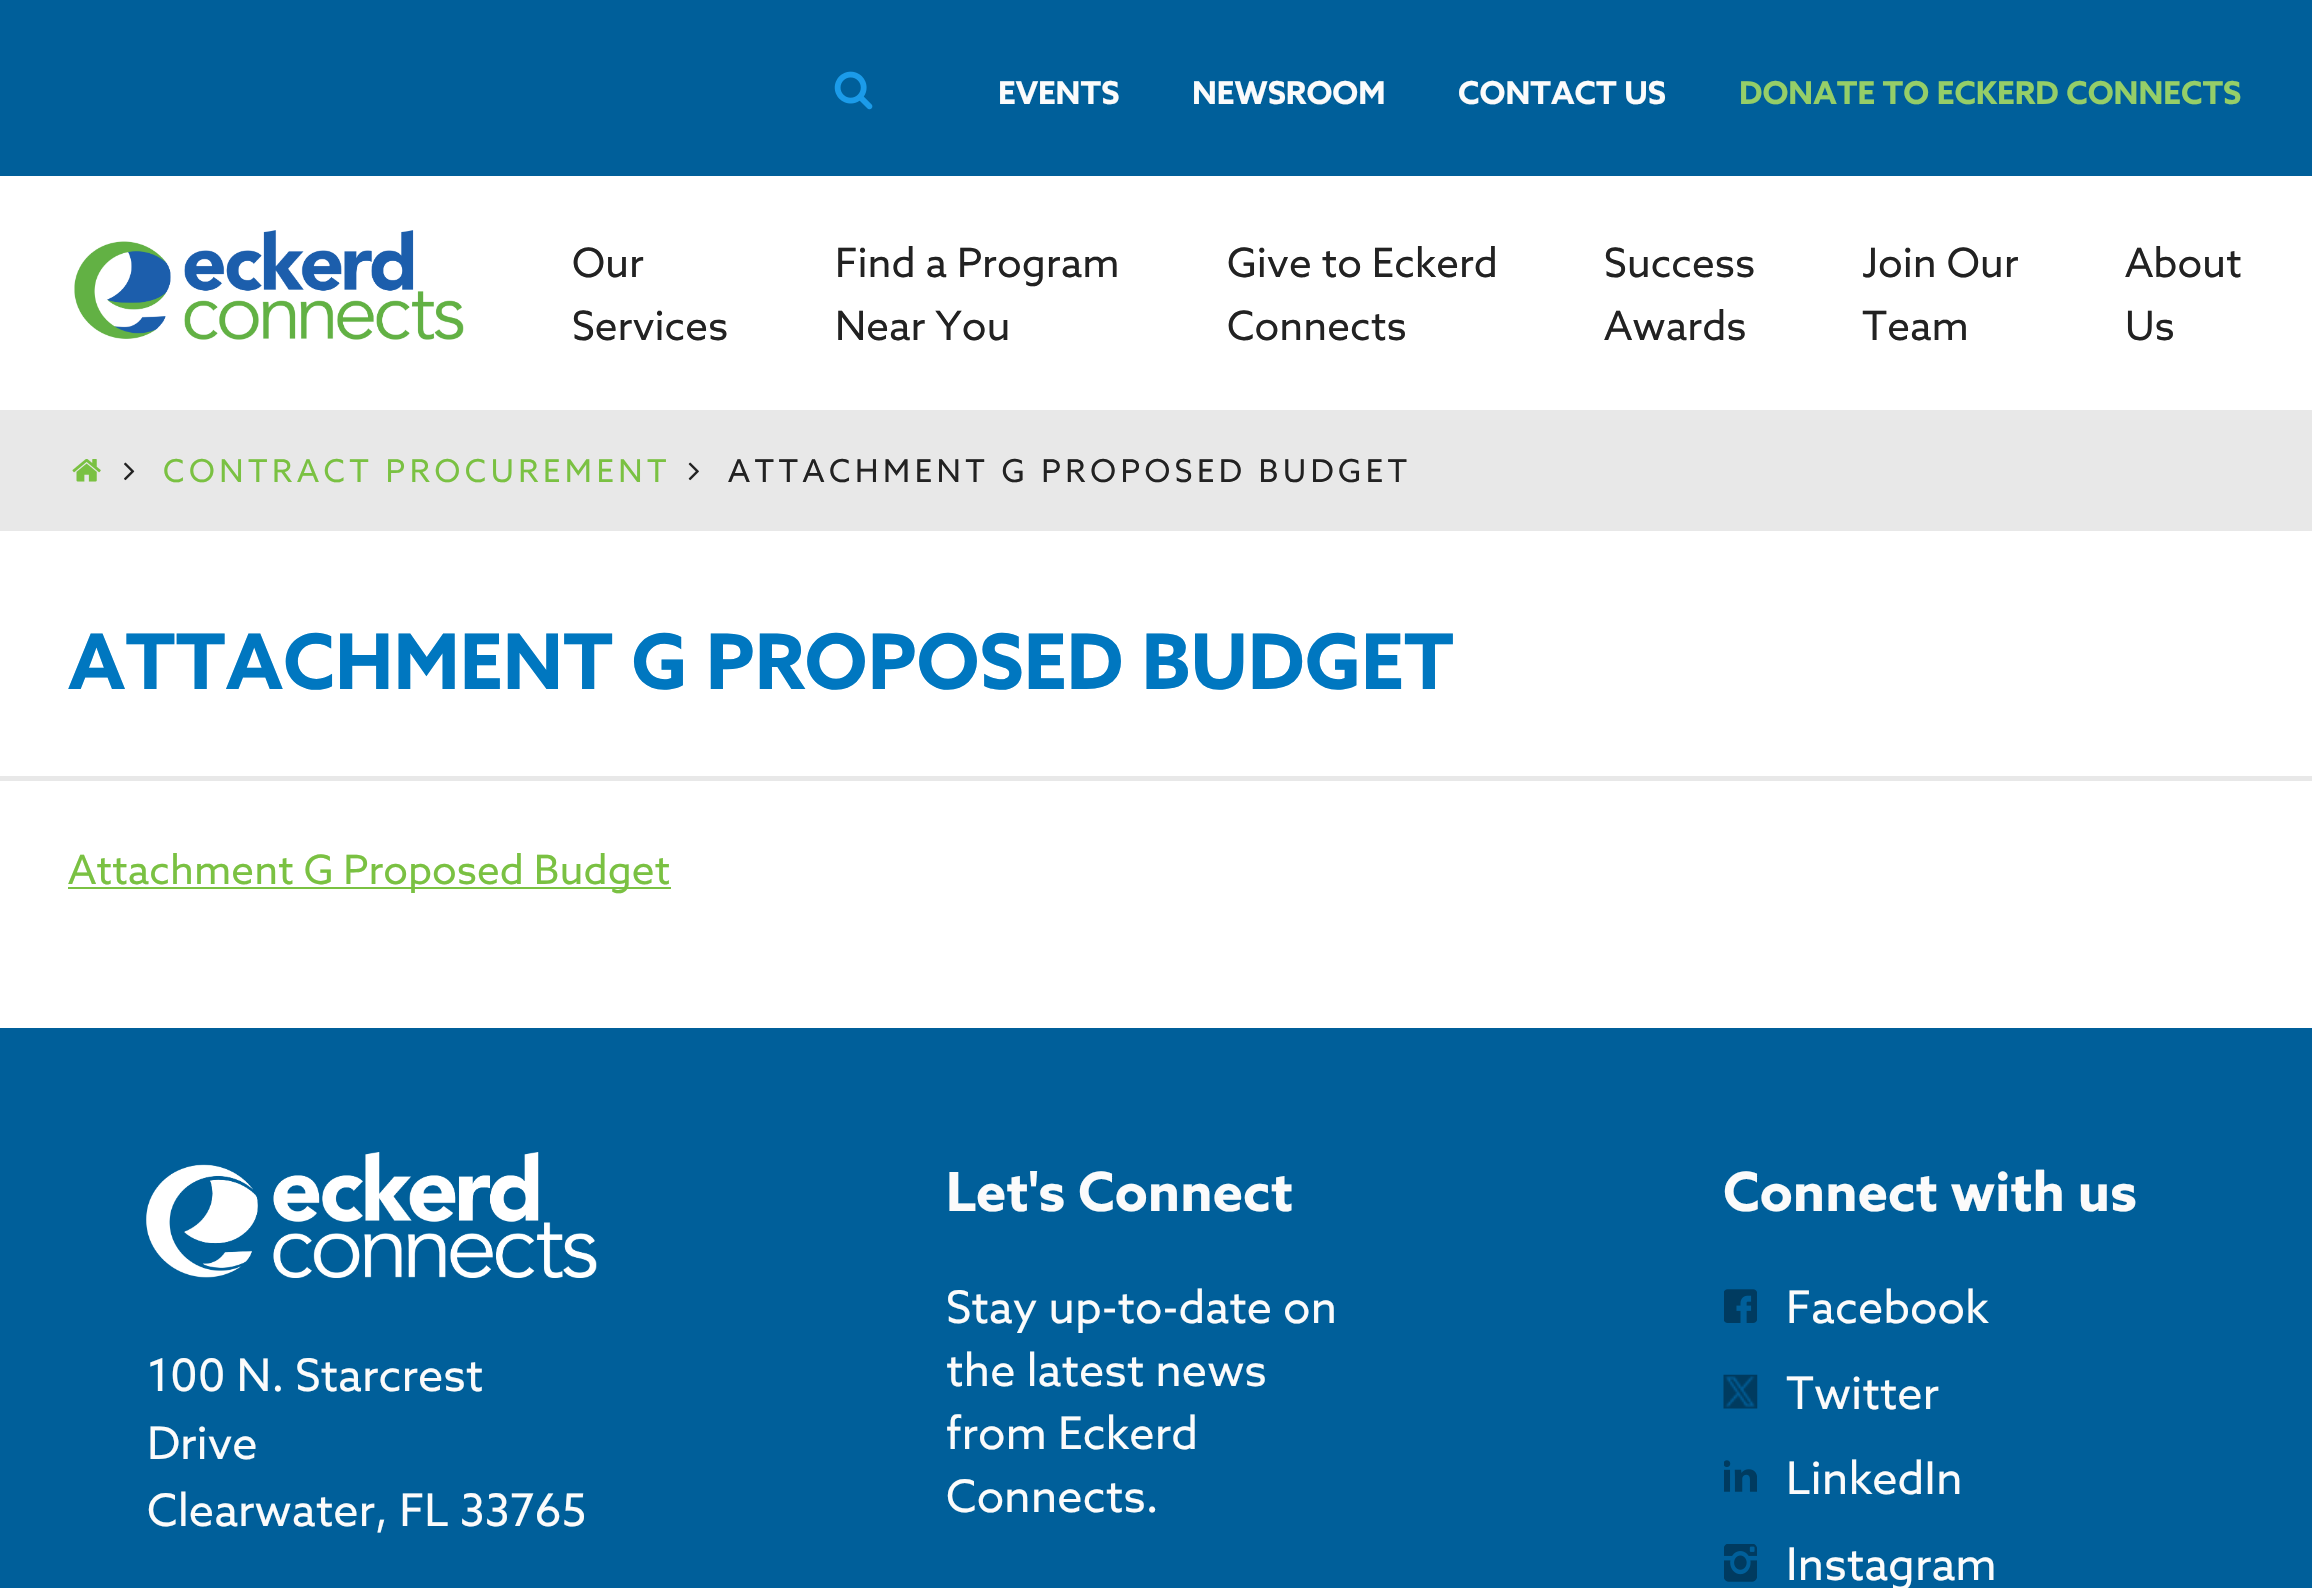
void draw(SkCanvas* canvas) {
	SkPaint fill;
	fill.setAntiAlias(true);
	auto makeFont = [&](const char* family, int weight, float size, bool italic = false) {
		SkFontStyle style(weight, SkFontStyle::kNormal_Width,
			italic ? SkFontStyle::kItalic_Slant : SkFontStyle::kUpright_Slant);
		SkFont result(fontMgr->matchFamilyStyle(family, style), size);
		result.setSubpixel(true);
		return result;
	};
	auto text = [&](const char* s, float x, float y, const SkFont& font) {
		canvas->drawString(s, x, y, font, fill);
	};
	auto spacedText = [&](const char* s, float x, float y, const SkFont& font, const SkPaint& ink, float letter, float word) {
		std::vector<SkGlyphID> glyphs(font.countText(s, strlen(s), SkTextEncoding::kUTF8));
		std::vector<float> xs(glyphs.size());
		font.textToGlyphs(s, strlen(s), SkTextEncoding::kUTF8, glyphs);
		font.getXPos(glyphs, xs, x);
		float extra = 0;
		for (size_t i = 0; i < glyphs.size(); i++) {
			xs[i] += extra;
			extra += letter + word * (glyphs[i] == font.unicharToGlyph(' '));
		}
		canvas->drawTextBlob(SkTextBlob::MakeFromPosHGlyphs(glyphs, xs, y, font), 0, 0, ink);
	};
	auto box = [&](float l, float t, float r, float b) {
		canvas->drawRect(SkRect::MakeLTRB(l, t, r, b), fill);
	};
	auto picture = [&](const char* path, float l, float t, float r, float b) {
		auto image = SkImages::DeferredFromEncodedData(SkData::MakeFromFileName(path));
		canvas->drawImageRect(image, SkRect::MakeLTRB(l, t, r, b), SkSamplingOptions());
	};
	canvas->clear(0xFFFFFFFF);
	fill.setColor(0xFF005F9A);
	box(0, 0, 2312, 176);
	picture("image0.png", 834, 71, 873, 110);
	picture("image1.png", 74, 230, 464, 340);
	fill.setColor(0xFFE8E8E8);
	box(0, 410, 2312, 531);
	picture("image2.png", 72, 459, 101, 482);
	picture("image3.png", 124, 462, 135, 481);
	picture("image4.png", 688, 462, 699, 481);
	box(0, 776, 2312, 781);
	fill.setColor(0xFF7AC142);
	box(68, 887, 671, 889);
	fill.setColor(0xFF005F9A);
	box(0, 1028, 2312, 1588);
	picture("image5.png", 146, 1152, 597, 1278);
	picture("image6.png", 1724, 1289, 1757, 1323);
	picture("image7.png", 1723, 1374, 1758, 1409);
	picture("image8.png", 1724, 1460, 1757, 1492);
	picture("image9.png", 1724, 1544, 1757, 1582);
	auto font1 = makeFont("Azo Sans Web", 700, 31.5f);
	fill.setColor(0xFFFBFBFB);
	text("EVENTS", 998, 104, font1);
	text("NEWSROOM", 1192, 104, font1);
	text("CONTACT US", 1458, 104, font1);
	fill.setColor(0xFF95CE68);
	text("DONATE TO ECKERD CONNECTS", 1739, 104, font1);
	auto font2 = makeFont("Azo Sans Web", 400, 40.5f);
	fill.setColor(0xFF222222);
	text("Our", 572, 277, font2);
	text("Services", 572, 340, font2);
	text("Find a Program", 835, 277, font2);
	text("Near You", 835, 340, font2);
	text("Give to Eckerd", 1227, 277, font2);
	text("Connects", 1227, 340, font2);
	text("Success", 1604, 277, font2);
	text("Awards", 1604, 340, font2);
	text("Join Our", 1862, 277, font2);
	text("Team", 1862, 340, font2);
	text("About", 2125, 277, font2);
	text("Us", 2125, 340, font2);
	auto font3 = makeFont("Azo Sans Web", 400, 31.5f);
	fill.setColor(0xFF7AC142);
	spacedText("CONTRACT PROCUREMENT", 163, 482, font3, fill, 4.5f, 0);
	fill.setColor(0xFF222222);
	spacedText("ATTACHMENT G PROPOSED BUDGET", 728, 482, font3, fill, 4.5f, 0);
	auto font4 = makeFont("Azo Sans Web", 700, 76.5f);
	fill.setColor(0xFF0077C0);
	text("ATTACHMENT G PROPOSED BUDGET", 68, 689, font4);
	fill.setColor(0xFF7AC142);
	text("Attachment G Proposed Budget", 68, 884, font2);
	auto font5 = makeFont("Azo Sans Web", 400, 45);
	fill.setColor(0xFFFBFBFB);
	text("100 N. Starcrest", 147, 1391, font5);
	text("Drive", 147, 1459, font5);
	text("Clearwater, FL 33765", 147, 1526, font5);
	auto font6 = makeFont("Azo Sans Web", 700, 54);
	text("Let's Connect", 946, 1211, font6);
	text("Stay up-to-date on", 946, 1323, font5);
	text("the latest news", 946, 1386, font5);
	text("from Eckerd", 946, 1449, font5);
	text("Connects.", 946, 1512, font5);
	text("Connect with us", 1723, 1211, font6);
	text("Facebook", 1786, 1323, font5);
	text("Twitter", 1786, 1409, font5);
	text("LinkedIn", 1786, 1494, font5);
	text("Instagram", 1786, 1580, font5);
}
